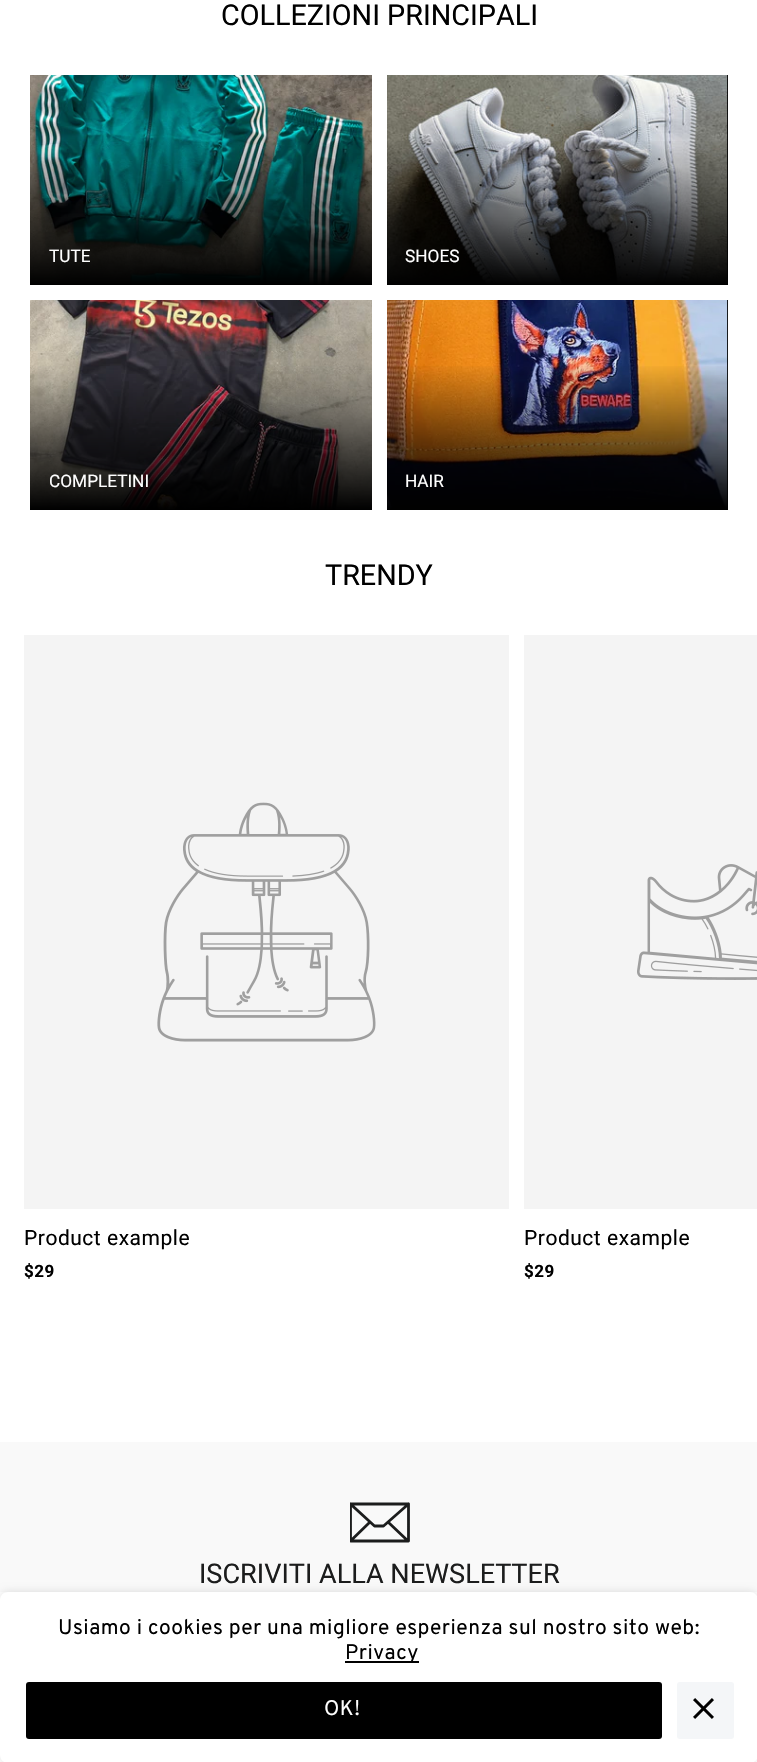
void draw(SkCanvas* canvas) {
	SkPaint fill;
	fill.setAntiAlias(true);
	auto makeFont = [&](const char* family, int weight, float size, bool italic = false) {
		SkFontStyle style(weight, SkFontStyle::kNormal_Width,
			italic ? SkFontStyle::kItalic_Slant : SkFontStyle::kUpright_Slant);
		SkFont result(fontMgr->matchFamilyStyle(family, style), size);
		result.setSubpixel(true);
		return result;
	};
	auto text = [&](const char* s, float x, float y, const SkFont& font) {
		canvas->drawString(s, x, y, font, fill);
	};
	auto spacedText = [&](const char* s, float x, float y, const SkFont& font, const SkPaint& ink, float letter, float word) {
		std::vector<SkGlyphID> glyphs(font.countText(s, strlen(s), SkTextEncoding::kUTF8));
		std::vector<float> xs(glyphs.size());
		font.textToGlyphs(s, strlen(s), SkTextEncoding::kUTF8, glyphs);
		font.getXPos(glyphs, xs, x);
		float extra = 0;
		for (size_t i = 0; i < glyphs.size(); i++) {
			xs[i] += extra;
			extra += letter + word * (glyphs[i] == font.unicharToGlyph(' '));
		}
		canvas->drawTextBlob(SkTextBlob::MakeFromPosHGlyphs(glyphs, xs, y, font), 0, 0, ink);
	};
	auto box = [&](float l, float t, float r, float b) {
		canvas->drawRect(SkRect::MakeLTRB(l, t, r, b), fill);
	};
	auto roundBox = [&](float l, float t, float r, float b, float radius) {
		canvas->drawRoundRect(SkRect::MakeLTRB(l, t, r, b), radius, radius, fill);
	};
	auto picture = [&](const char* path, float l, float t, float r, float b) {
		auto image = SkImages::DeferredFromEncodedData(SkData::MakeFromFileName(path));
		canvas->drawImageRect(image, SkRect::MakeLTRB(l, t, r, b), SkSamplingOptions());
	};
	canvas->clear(0xFFFFFFFF);
	picture("image0.png", 30, 75, 372, 285);
	fill.setColor(0xFF000000);
	box(727, 75, 728, 284);
	picture("image1.png", 387, 75, 728, 284);
	{
		const SkColor colors[] = {0x00000000, 0xFF000000};
		const float stops[] = {0.3f, 1};
		const SkPoint ends[] = {{557, 75}, {557, 285}};
		fill.setShader(SkGradientShader::MakeLinear(ends, colors, stops, 2, SkTileMode::kClamp));
		fill.setAlpha(255);
	}
	box(387, 141, 728, 285);
	picture("image2.png", 30, 300, 372, 510);
	fill.setShader(nullptr);
	fill.setColor(0xFF000000);
	box(727, 300, 728, 509);
	picture("image3.png", 387, 300, 728, 509);
	{
		const SkColor colors[] = {0x00000000, 0xFF000000};
		const float stops[] = {0.3f, 1};
		const SkPoint ends[] = {{557, 300}, {557, 510}};
		fill.setShader(SkGradientShader::MakeLinear(ends, colors, stops, 2, SkTileMode::kClamp));
		fill.setAlpha(255);
	}
	box(387, 366, 728, 510);
	fill.setShader(nullptr);
	fill.setColor(0xFFF4F4F4);
	box(24, 635, 509, 1209);
	picture("image4.png", 157, 802, 376, 1042);
	box(524, 635, 757, 1209);
	picture("image5.png", 637, 864, 757, 980);
	fill.setColor(0xFFF9F9F9);
	box(0, 1442, 757, 1592);
	canvas->save();
	canvas->clipRect(SkRect::MakeLTRB(350, 1493, 410, 1553));
	fill.setStyle(SkPaint::kStroke_Style);
	fill.setStrokeWidth(2.8f);
	fill.setStrokeCap(SkPaint::kRound_Cap);
	fill.setStrokeJoin(SkPaint::kRound_Join);
	fill.setColor(0xFF1C1D1D);
	canvas->drawPath(SkPathBuilder().moveTo(408.5f, 1541).lineTo(350.5f, 1541).lineTo(350.5f, 1504).lineTo(408.5f, 1504).close().moveTo(350.5f, 1504).lineTo(374.5f, 1526).lineTo(383.5f, 1526).lineTo(408.5f, 1504).moveTo(370, 1522).lineTo(351, 1540.5f).moveTo(408, 1541).lineTo(388, 1522).detach(), fill);
	canvas->restore();
	canvas->save();
	canvas->clipPath(SkPathBuilder(SkPathFillType::kEvenOdd).moveTo(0, 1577).lineTo(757, 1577).lineTo(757, 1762).lineTo(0, 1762).close().moveTo(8, 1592).lineTo(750, 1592).cubicTo(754.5f, 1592, 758, 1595.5f, 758, 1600).lineTo(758, 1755).cubicTo(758, 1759.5f, 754.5f, 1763, 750, 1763).lineTo(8, 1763).cubicTo(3.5f, 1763, 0, 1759.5f, 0, 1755).lineTo(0, 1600).cubicTo(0, 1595.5f, 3.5f, 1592, 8, 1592).close().detach(), true);
	fill.setStyle(SkPaint::kFill_Style);
	fill.setColor(0x1F000000);
	fill.setMaskFilter(SkMaskFilter::MakeBlur(kNormal_SkBlurStyle, 4.5f));
	canvas->drawRoundRect(SkRect::MakeLTRB(0, 1592, 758, 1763), 8, 8, fill);
	fill.setMaskFilter(nullptr);
	canvas->restore();
	fill.setColor(0xFF000000);
	box(345, 1661, 419, 1663);
	roundBox(26, 1682, 662, 1739, 3);
	fill.setColor(0xFFF4F6F8);
	roundBox(677, 1682, 734, 1739, 3);
	picture("image6.png", 693, 1698, 714, 1719);
	auto font1 = makeFont("Roboto", 400, 28.75f);
	fill.setColor(0xFF000000);
	text("COLLEZIONI PRINCIPALI", 221, 25, font1);
	auto font2 = makeFont("Roboto", 400, 17.25f);
	fill.setColor(0xFFFFFFFF);
	text("TUTE", 49, 262, font2);
	text("SHOES", 405, 262, font2);
	text("COMPLETINI", 49, 487, font2);
	text("HAIR", 405, 487, font2);
	fill.setColor(0xFF000000);
	text("TRENDY", 325, 585, font1);
	auto font3 = makeFont("Roboto", 400, 21);
	spacedText("Product example", 24, 1245, font3, fill, 0.52f, 0);
	auto font4 = makeFont("Roboto", 700, 17);
	spacedText("$29", 24, 1277, font4, fill, 0.52f, 0);
	spacedText("Product example", 524, 1245, font3, fill, 0.52f, 0);
	spacedText("$29", 524, 1277, font4, fill, 0.52f, 0);
	auto font5 = makeFont("Roboto", 400, 27.1f);
	fill.setColor(0xFF1C1D1D);
	text("ISCRIVITI ALLA NEWSLETTER", 199, 1583, font5);
	auto font6 = makeFont("Overpass", 400, 21);
	fill.setColor(0xFF000000);
	spacedText("Usiamo i cookies per una migliore esperienza sul nostro sito web:", 58, 1634, font6, fill, 0.52f, 0);
	spacedText("Privacy", 345, 1659, font6, fill, 0.52f, 0);
	fill.setColor(0xFFFFFFFF);
	spacedText("OK!", 324, 1715, font6, fill, 0.52f, 0);
}
